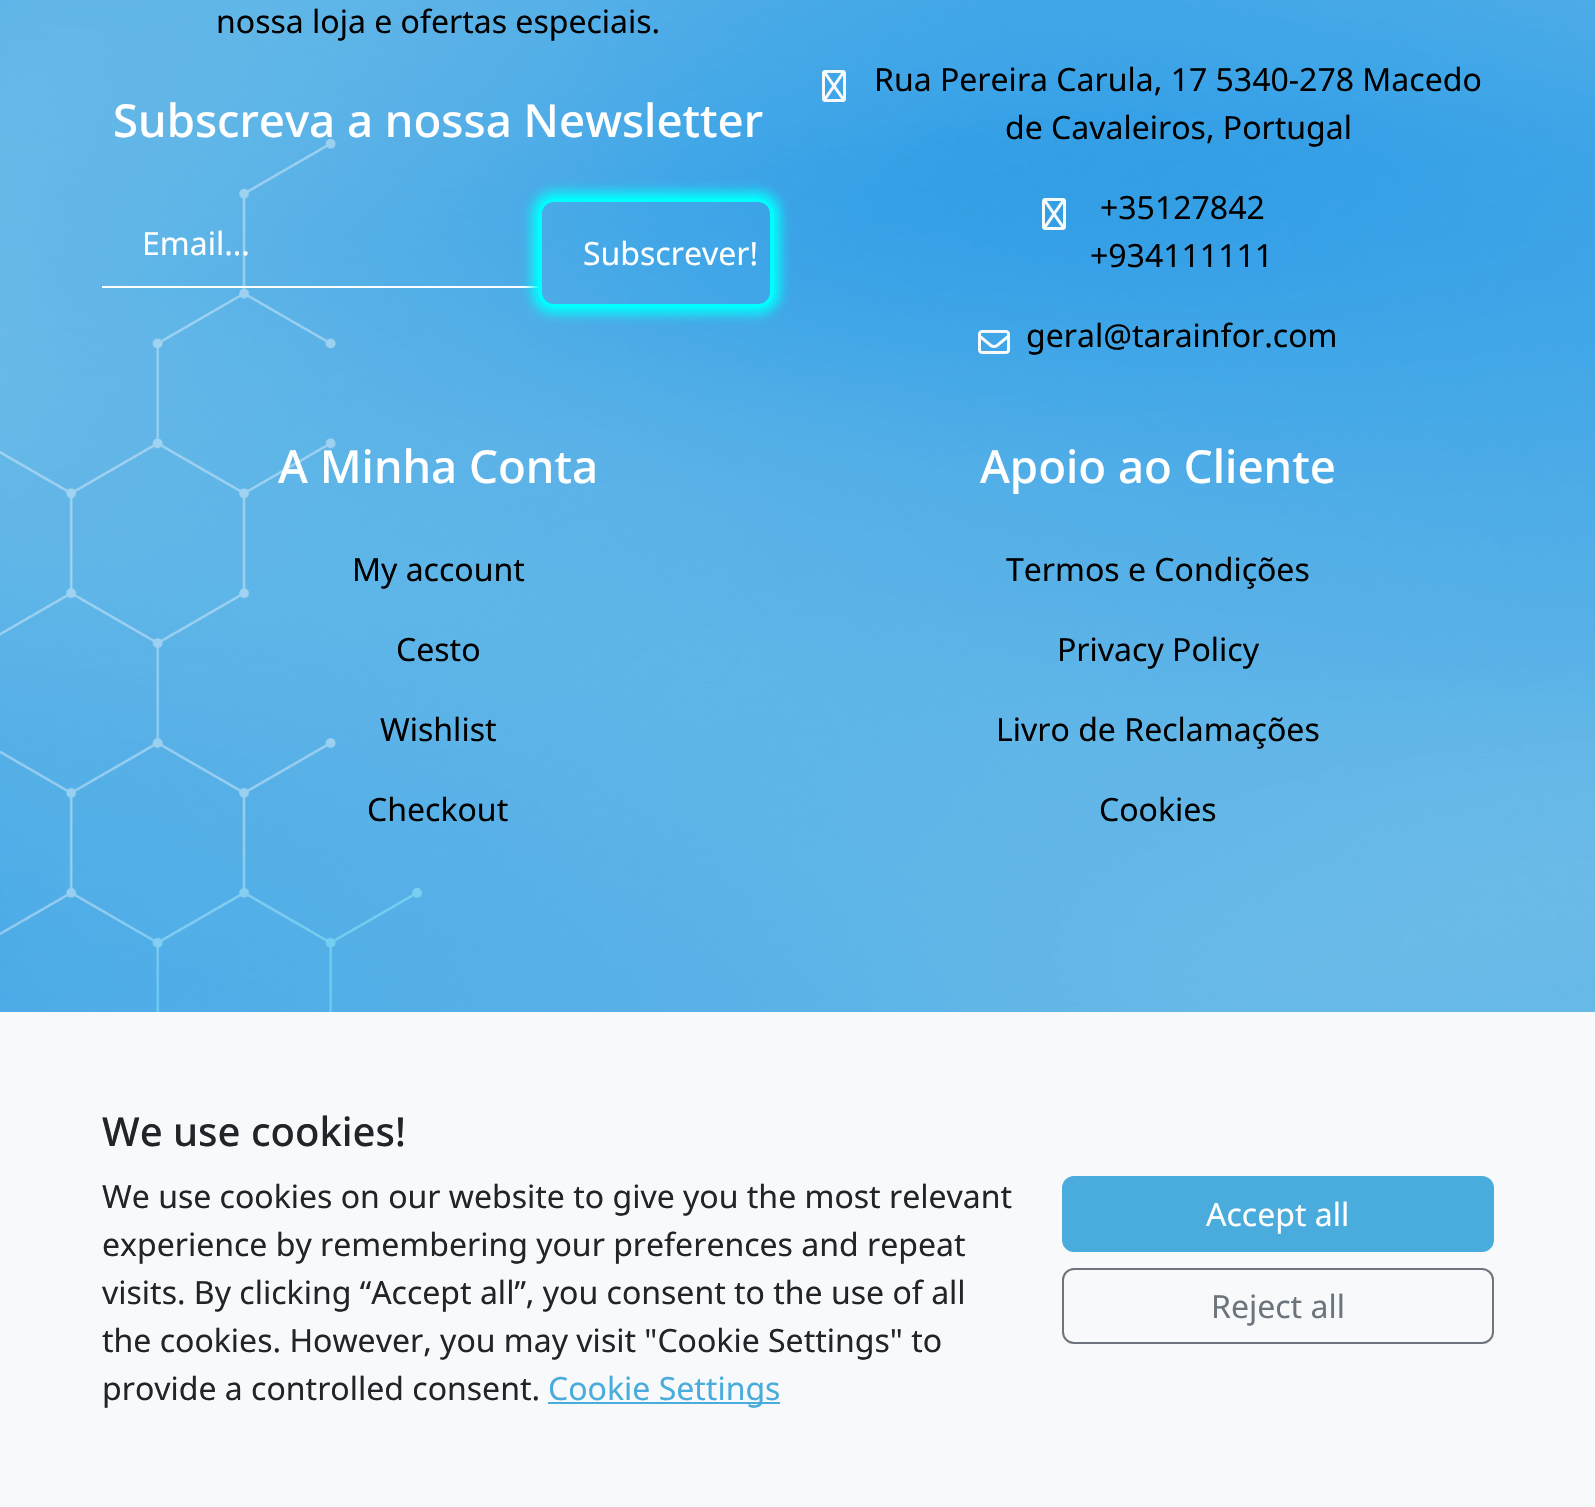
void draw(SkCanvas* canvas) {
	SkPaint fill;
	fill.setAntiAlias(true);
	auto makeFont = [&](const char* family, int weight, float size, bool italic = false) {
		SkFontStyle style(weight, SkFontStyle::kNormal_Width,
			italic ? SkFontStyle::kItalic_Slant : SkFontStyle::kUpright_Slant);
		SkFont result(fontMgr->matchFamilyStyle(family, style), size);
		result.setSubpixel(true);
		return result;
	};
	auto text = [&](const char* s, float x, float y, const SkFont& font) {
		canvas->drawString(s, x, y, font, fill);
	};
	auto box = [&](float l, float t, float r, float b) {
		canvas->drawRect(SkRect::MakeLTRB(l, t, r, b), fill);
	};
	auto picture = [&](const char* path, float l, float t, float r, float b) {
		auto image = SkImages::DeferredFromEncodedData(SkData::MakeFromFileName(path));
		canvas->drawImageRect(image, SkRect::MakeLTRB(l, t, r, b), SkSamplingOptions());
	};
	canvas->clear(0xFFFFFFFF);
	picture("image0.png", 0, 0, 1595, 1012);
	fill.setColor(0xFFFFFFFF);
	box(102, 286, 538, 288);
	canvas->save();
	canvas->clipPath(SkPathBuilder(SkPathFillType::kEvenOdd).moveTo(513, 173).lineTo(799, 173).lineTo(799, 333).lineTo(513, 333).close().moveTo(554, 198).lineTo(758, 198).cubicTo(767, 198, 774, 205, 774, 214).lineTo(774, 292).cubicTo(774, 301, 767, 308, 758, 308).lineTo(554, 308).cubicTo(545, 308, 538, 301, 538, 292).lineTo(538, 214).cubicTo(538, 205, 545, 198, 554, 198).close().detach(), true);
	fill.setColor(0xFF00FEFE);
	fill.setMaskFilter(SkMaskFilter::MakeBlur(kNormal_SkBlurStyle, 6));
	canvas->drawRoundRect(SkRect::MakeLTRB(532, 192, 780, 314), 22, 22, fill);
	fill.setMaskFilter(nullptr);
	canvas->restore();
	fill.setStyle(SkPaint::kStroke_Style);
	fill.setStrokeWidth(4);
	canvas->drawRoundRect(SkRect::MakeLTRB(540, 200, 772, 306), 14, 14, fill);
	picture("image1.png", 822, 70, 846, 102);
	picture("image2.png", 1042, 198, 1066, 230);
	picture("image3.png", 978, 330, 1010, 354);
	fill.setStyle(SkPaint::kFill_Style);
	fill.setColor(0xFFF8F9FA);
	box(0, 1012, 1595, 1507);
	fill.setColor(0xFF49ACDC);
	box(548, 1402, 780, 1404);
	canvas->drawRoundRect(SkRect::MakeLTRB(1063, 1177, 1493, 1251), 11, 11, fill);
	fill.setStyle(SkPaint::kStroke_Style);
	fill.setStrokeWidth(2);
	canvas->drawRoundRect(SkRect::MakeLTRB(1063, 1177, 1493, 1251), 11, 11, fill);
	fill.setColor(0xFF6C757D);
	canvas->drawRoundRect(SkRect::MakeLTRB(1063, 1269, 1493, 1343), 11, 11, fill);
	auto font1 = makeFont("Noto Sans", 400, 32);
	fill.setStyle(SkPaint::kFill_Style);
	fill.setColor(0xFF000000);
	text("nossa loja e ofertas especiais.", 216, 33, font1);
	auto font2 = makeFont("Noto Sans", 500, 45.6f);
	fill.setColor(0xFFFFFFFF);
	text("Subscreva a nossa Newsletter", 113, 137, font2);
	text("Email...", 142, 255, font1);
	text("Subscrever!", 583, 265, font1);
	fill.setColor(0xFF000000);
	text("Rua Pereira Carula, 17 5340-278 Macedo", 874, 91, font1);
	text("de Cavaleiros, Portugal", 1005, 139, font1);
	text("+35127842", 1100, 219, font1);
	text("+934111111", 1090, 267, font1);
	text("geral@tarainfor.com", 1026, 347, font1);
	fill.setColor(0xFFFFFFFF);
	text("A Minha Conta", 278, 483, font2);
	fill.setColor(0xFF000000);
	text("My account", 352, 581, font1);
	text("Cesto", 396, 661, font1);
	text("Wishlist", 380, 741, font1);
	text("Checkout", 367, 821, font1);
	fill.setColor(0xFFFFFFFF);
	text("Apoio ao Cliente", 980, 483, font2);
	fill.setColor(0xFF000000);
	text("Termos e Condições", 1006, 581, font1);
	text("Privacy Policy", 1057, 661, font1);
	text("Livro de Reclamações", 996, 741, font1);
	text("Cookies", 1099, 821, font1);
	auto font3 = makeFont("Noto Sans", 500, 40);
	fill.setColor(0xFF212529);
	text("We use cookies!", 102, 1146, font3);
	text("We use cookies on our website to give you the most relevant", 102, 1208, font1);
	text("experience by remembering your preferences and repeat", 102, 1256, font1);
	text("visits. By clicking “Accept all”, you consent to the use of all", 102, 1304, font1);
	text("the cookies. However, you may visit \"Cookie Settings\" to", 102, 1352, font1);
	text("provide a controlled consent.", 102, 1400, font1);
	fill.setColor(0xFF49ACDC);
	text("Cookie Settings", 548, 1400, font1);
	fill.setColor(0xFFFFFFFF);
	text("Accept all", 1206, 1226, font1);
	fill.setColor(0xFF6C757D);
	text("Reject all", 1211, 1318, font1);
}
